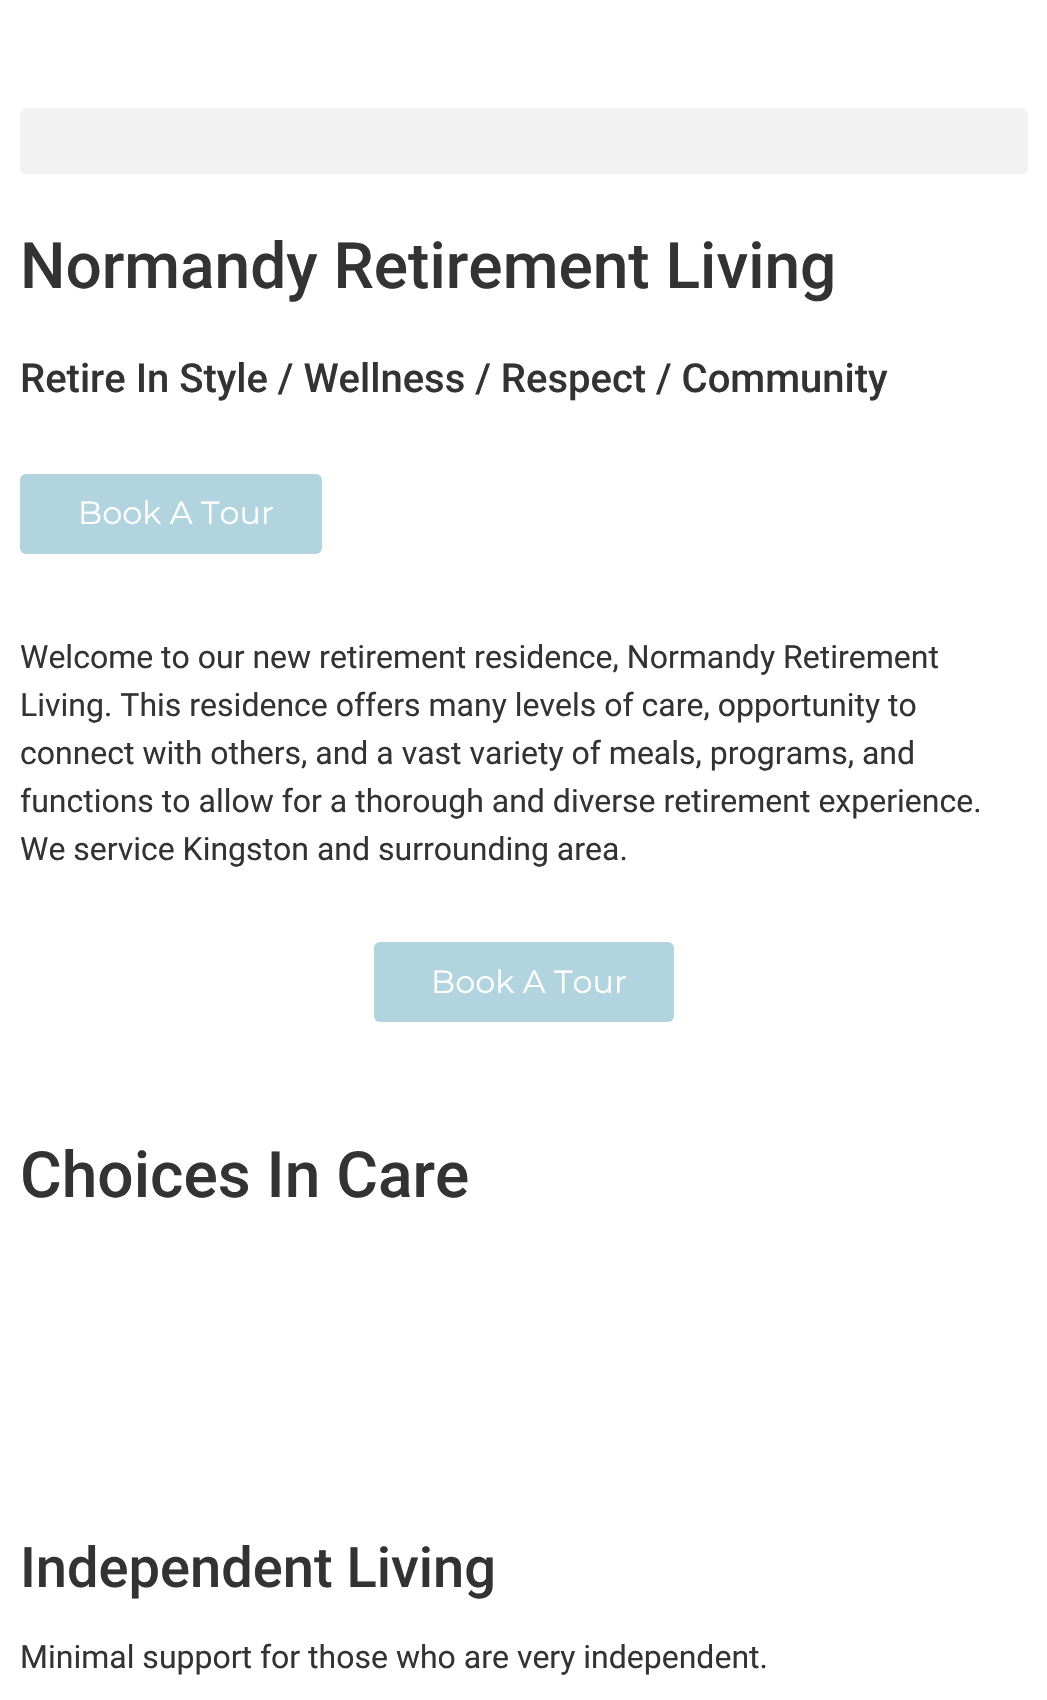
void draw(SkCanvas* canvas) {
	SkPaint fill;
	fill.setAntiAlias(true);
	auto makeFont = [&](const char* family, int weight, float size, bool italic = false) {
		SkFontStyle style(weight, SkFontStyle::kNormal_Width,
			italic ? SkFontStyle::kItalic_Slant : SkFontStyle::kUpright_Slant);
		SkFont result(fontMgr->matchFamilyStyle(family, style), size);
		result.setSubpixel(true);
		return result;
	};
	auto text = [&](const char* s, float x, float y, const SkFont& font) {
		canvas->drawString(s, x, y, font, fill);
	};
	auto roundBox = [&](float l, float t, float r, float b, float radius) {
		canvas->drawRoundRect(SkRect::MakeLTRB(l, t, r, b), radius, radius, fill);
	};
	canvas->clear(0xFFFFFFFF);
	fill.setColor(0xFFF2F2F2);
	roundBox(20, 108, 1028, 174, 6);
	fill.setColor(0xFFB1D4DF);
	roundBox(20, 474, 322, 554, 6);
	roundBox(374, 942, 674, 1022, 6);
	auto font1 = makeFont("Roboto", 500, 64);
	fill.setColor(0xFF333333);
	text("Normandy Retirement Living", 20, 288, font1);
	auto font2 = makeFont("Roboto", 500, 40);
	text("Retire In Style / Wellness / Respect / Community", 20, 392, font2);
	auto font3 = makeFont("Montserrat", 400, 32);
	fill.setColor(0xFFFFFFFF);
	text("Book A Tour", 78, 524, font3);
	auto font4 = makeFont("Roboto", 400, 32);
	fill.setColor(0xFF333333);
	text("Welcome to our new retirement residence, Normandy Retirement", 20, 668, font4);
	text("Living. This residence offers many levels of care, opportunity to", 20, 716, font4);
	text("connect with others, and a vast variety of meals, programs, and", 20, 764, font4);
	text("functions to allow for a thorough and diverse retirement experience.", 20, 812, font4);
	text("We service Kingston and surrounding area.", 20, 860, font4);
	fill.setColor(0xFFFFFFFF);
	text("Book A Tour", 431, 993, font3);
	fill.setColor(0xFF333333);
	text("Choices In Care", 20, 1197, font1);
	auto font5 = makeFont("Roboto", 500, 56);
	text("Independent Living", 20, 1587, font5);
	text("Minimal support for those who are very independent.", 20, 1668, font4);
}
